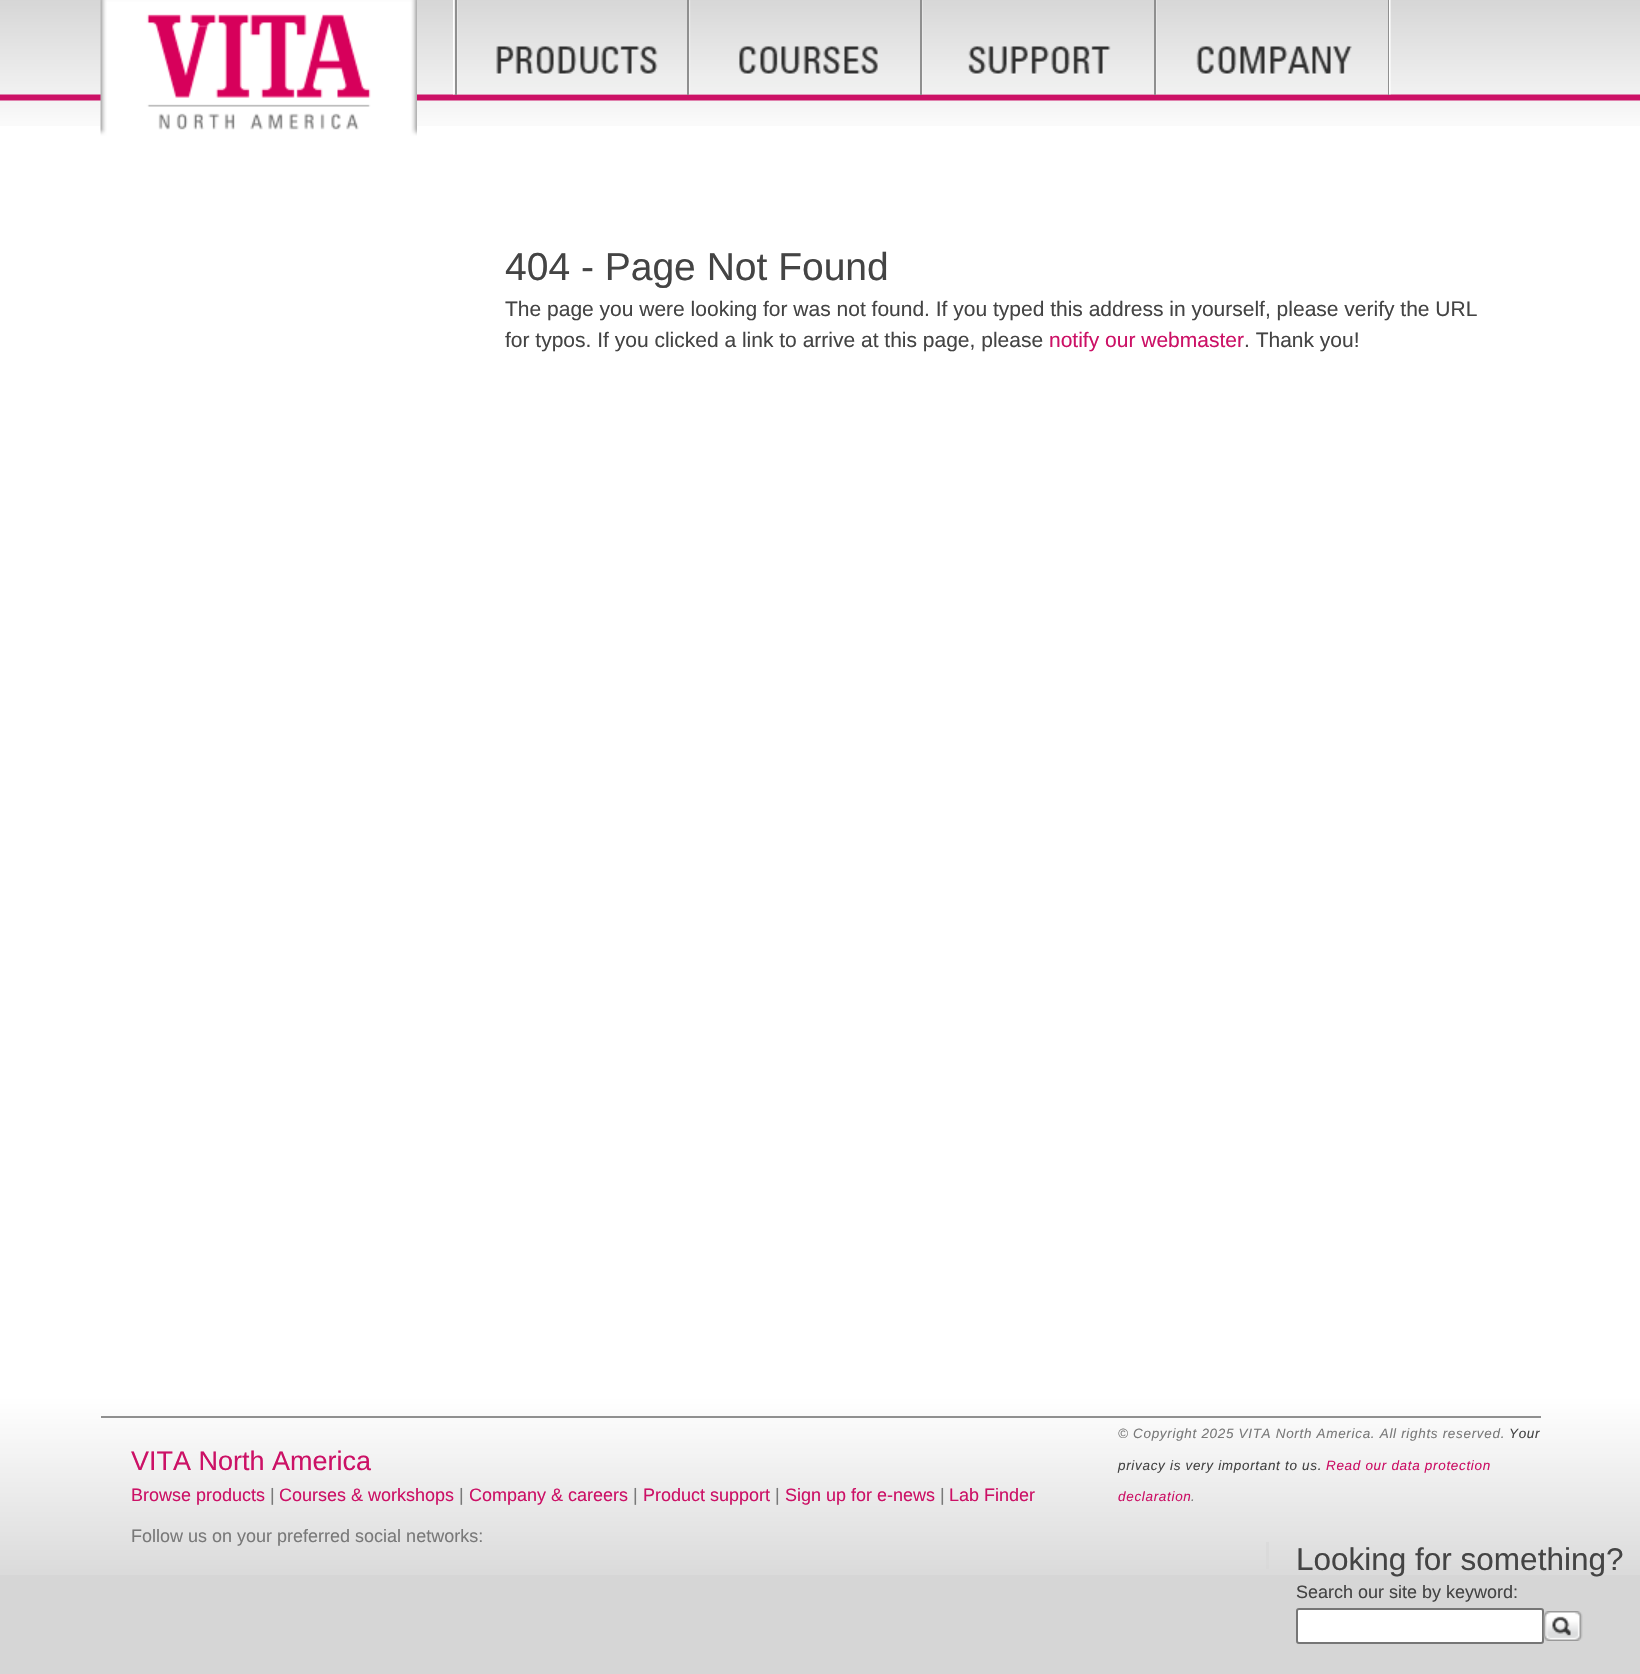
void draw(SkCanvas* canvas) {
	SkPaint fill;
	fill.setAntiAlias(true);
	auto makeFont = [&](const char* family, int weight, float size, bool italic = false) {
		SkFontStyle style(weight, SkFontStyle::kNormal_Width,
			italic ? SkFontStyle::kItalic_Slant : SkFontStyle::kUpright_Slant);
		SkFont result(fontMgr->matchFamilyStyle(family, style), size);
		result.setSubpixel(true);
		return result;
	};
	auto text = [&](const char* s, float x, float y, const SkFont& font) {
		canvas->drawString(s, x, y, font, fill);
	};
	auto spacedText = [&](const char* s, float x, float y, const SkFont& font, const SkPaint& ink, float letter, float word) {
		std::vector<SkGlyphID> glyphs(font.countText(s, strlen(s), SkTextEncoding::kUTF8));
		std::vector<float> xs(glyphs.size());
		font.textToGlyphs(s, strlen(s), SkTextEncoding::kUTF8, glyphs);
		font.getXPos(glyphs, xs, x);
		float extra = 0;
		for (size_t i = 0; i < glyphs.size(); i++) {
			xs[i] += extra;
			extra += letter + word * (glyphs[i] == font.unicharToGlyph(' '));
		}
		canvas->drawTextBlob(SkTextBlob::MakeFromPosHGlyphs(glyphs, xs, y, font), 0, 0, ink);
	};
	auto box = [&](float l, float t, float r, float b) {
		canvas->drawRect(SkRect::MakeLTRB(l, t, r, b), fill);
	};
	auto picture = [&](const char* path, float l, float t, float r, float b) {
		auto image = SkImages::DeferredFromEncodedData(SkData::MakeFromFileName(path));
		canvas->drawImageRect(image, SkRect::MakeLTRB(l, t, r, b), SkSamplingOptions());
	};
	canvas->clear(0xFFFFFFFF);
	picture("image0.png", 0, 0, 1640, 126);
	picture("image1.png", 100, 0, 417, 136);
	picture("image2.png", 453, 0, 455, 95);
	picture("image3.png", 457, 0, 687, 95);
	fill.setColor(0xFF8F8F8F);
	box(455, 0, 457, 95);
	picture("image4.png", 689, 0, 920, 95);
	box(687, 0, 689, 95);
	picture("image5.png", 922, 0, 1154, 95);
	box(1154, 0, 1156, 95);
	box(920, 0, 922, 95);
	picture("image6.png", 1156, 0, 1388, 95);
	box(1388, 0, 1390, 95);
	picture("image7.png", 1389, 0, 1391, 95);
	fill.setColor(0xFFD6D6D6);
	box(0, 1575, 1640, 1674);
	picture("image8.png", 0, 1395, 1640, 1575);
	fill.setColor(0xFF8F8F8F);
	box(101, 1416, 1541, 1418);
	fill.setColor(0xA1D7D7D7);
	box(1266, 1542, 1269, 1569);
	fill.setColor(0xFFFFFFFF);
	canvas->drawRoundRect(SkRect::MakeLTRB(1297, 1609, 1543, 1643), 2, 2, fill);
	fill.setStyle(SkPaint::kStroke_Style);
	fill.setStrokeWidth(2);
	fill.setColor(0xFF767676);
	canvas->drawRoundRect(SkRect::MakeLTRB(1297, 1609, 1543, 1643), 2, 2, fill);
	picture("image9.png", 1543, 1611, 1583, 1641);
	auto font1 = makeFont("Liberation Sans", 400, 39);
	fill.setStyle(SkPaint::kFill_Style);
	fill.setColor(0xFF444444);
	text("404 - Page Not Found", 505, 280, font1);
	auto font2 = makeFont("Liberation Sans", 400, 21);
	text("The page you were looking for was not found. If you typed this address in yourself, please verify the URL", 505, 316, font2);
	text("for typos. If you clicked a link to arrive at this page, please", 505, 347, font2);
	fill.setColor(0xFFCC1166);
	text("notify our webmaster", 1049, 347, font2);
	fill.setColor(0xFF444444);
	text(". Thank you!", 1244, 347, font2);
	auto font3 = makeFont("Liberation Sans", 400, 13.5f, true);
	fill.setColor(0xFF797979);
	spacedText("© Copyright 2025 VITA North America. All rights reserved.", 1118, 1438, font3, fill, 0.68f, 0);
	fill.setColor(0xFF444444);
	spacedText("Your", 1509, 1438, font3, fill, 0.68f, 0);
	auto font4 = makeFont("Liberation Sans", 400, 27);
	fill.setColor(0xFFCC1166);
	text("VITA North America", 131, 1470, font4);
	auto font5 = makeFont("Liberation Sans", 400, 18);
	text("Browse products", 131, 1501, font5);
	fill.setColor(0xFF797979);
	text("|", 270, 1501, font5);
	fill.setColor(0xFFCC1166);
	text("Courses & workshops", 279, 1501, font5);
	fill.setColor(0xFF797979);
	text("|", 459, 1501, font5);
	fill.setColor(0xFFCC1166);
	text("Company & careers", 469, 1501, font5);
	fill.setColor(0xFF797979);
	text("|", 633, 1501, font5);
	fill.setColor(0xFFCC1166);
	text("Product support", 643, 1501, font5);
	fill.setColor(0xFF797979);
	text("|", 775, 1501, font5);
	fill.setColor(0xFFCC1166);
	text("Sign up for e-news", 785, 1501, font5);
	fill.setColor(0xFF797979);
	text("|", 940, 1501, font5);
	fill.setColor(0xFFCC1166);
	text("Lab Finder", 949, 1501, font5);
	fill.setColor(0xFF797979);
	text("Follow us on your preferred social networks:", 131, 1542, font5);
	fill.setColor(0xFF444444);
	spacedText("privacy is very important to us.", 1118, 1470, font3, fill, 0.68f, 0);
	fill.setColor(0xFFCC1166);
	spacedText("Read our data protection", 1326, 1470, font3, fill, 0.68f, 0);
	spacedText("declaration", 1118, 1501, font3, fill, 0.68f, 0);
	fill.setColor(0xFF797979);
	spacedText(".", 1191, 1501, font3, fill, 0.68f, 0);
	auto font6 = makeFont("Liberation Sans", 400, 31.5f);
	fill.setColor(0xFF444444);
	text("Looking for something?", 1296, 1570, font6);
	text("Search our site by keyword:", 1296, 1598, font5);
}
